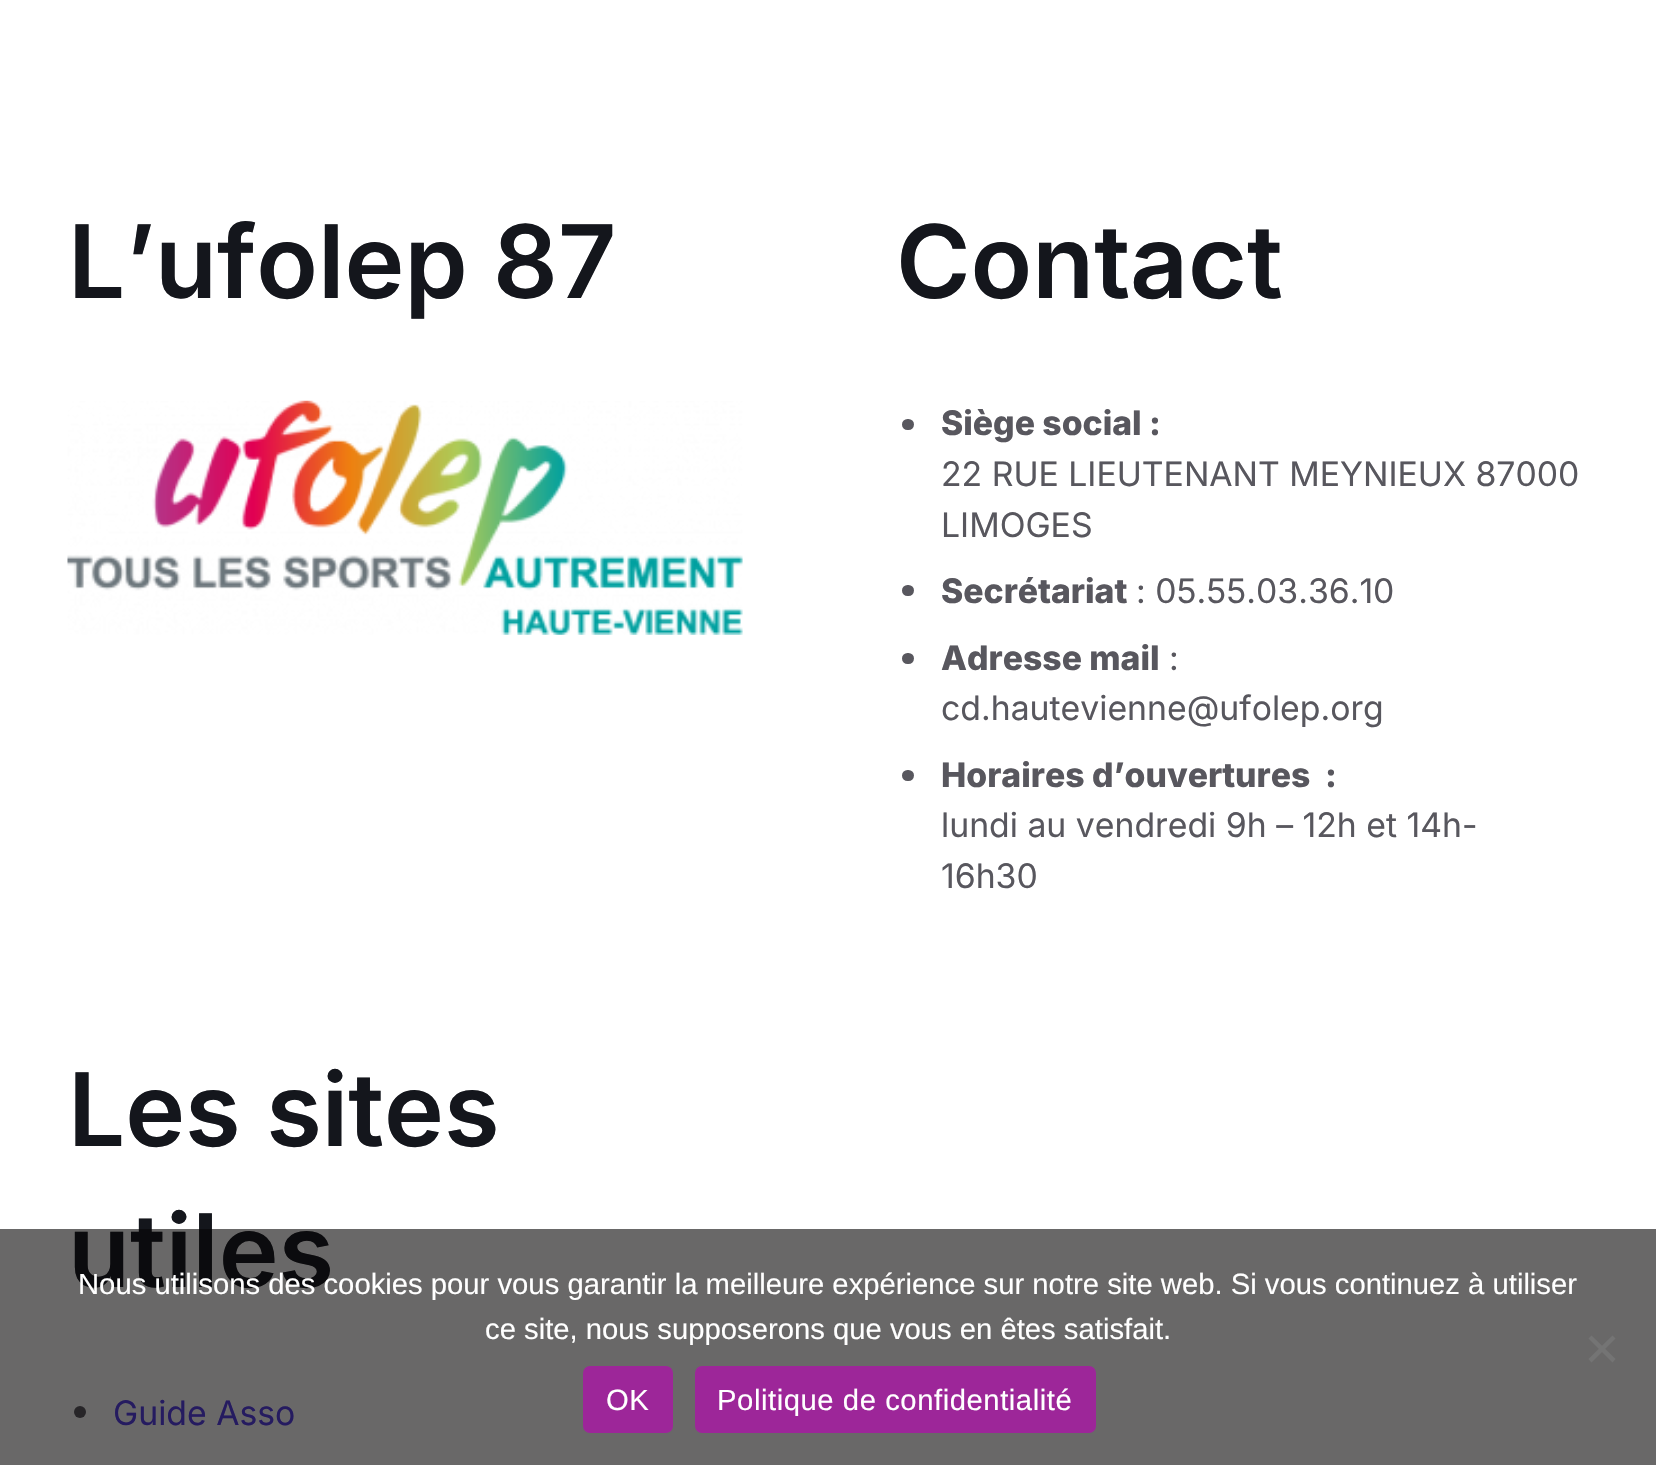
void draw(SkCanvas* canvas) {
	SkPaint fill;
	fill.setAntiAlias(true);
	auto makeFont = [&](const char* family, int weight, float size, bool italic = false) {
		SkFontStyle style(weight, SkFontStyle::kNormal_Width,
			italic ? SkFontStyle::kItalic_Slant : SkFontStyle::kUpright_Slant);
		SkFont result(fontMgr->matchFamilyStyle(family, style), size);
		result.setSubpixel(true);
		return result;
	};
	auto text = [&](const char* s, float x, float y, const SkFont& font) {
		canvas->drawString(s, x, y, font, fill);
	};
	auto spacedText = [&](const char* s, float x, float y, const SkFont& font, const SkPaint& ink, float letter, float word) {
		std::vector<SkGlyphID> glyphs(font.countText(s, strlen(s), SkTextEncoding::kUTF8));
		std::vector<float> xs(glyphs.size());
		font.textToGlyphs(s, strlen(s), SkTextEncoding::kUTF8, glyphs);
		font.getXPos(glyphs, xs, x);
		float extra = 0;
		for (size_t i = 0; i < glyphs.size(); i++) {
			xs[i] += extra;
			extra += letter + word * (glyphs[i] == font.unicharToGlyph(' '));
		}
		canvas->drawTextBlob(SkTextBlob::MakeFromPosHGlyphs(glyphs, xs, y, font), 0, 0, ink);
	};
	auto box = [&](float l, float t, float r, float b) {
		canvas->drawRect(SkRect::MakeLTRB(l, t, r, b), fill);
	};
	auto roundBox = [&](float l, float t, float r, float b, float radius) {
		canvas->drawRoundRect(SkRect::MakeLTRB(l, t, r, b), radius, radius, fill);
	};
	auto picture = [&](const char* path, float l, float t, float r, float b) {
		auto image = SkImages::DeferredFromEncodedData(SkData::MakeFromFileName(path));
		canvas->drawImageRect(image, SkRect::MakeLTRB(l, t, r, b), SkSamplingOptions());
	};
	canvas->clear(0xFFFFFFFF);
	picture("image0.png", 67, 400, 743, 635);
	fill.setColor(0xFF58575E);
	roundBox(902, 419, 914, 430, 5.5f);
	roundBox(902, 585, 914, 596, 5.5f);
	roundBox(902, 653, 914, 664, 5.5f);
	roundBox(902, 770, 914, 781, 5.5f);
	canvas->drawCircle(80, 1412, 6, fill);
	auto font1 = makeFont("Inter", 600, 101.25f);
	fill.setColor(0xFF14161C);
	text("L’ufolep 87", 68, 298, font1);
	text("Contact", 896, 298, font1);
	auto font2 = makeFont("Inter", 800, 33.75f);
	fill.setColor(0xFF58575E);
	text("Siège social :", 941, 435, font2);
	auto font3 = makeFont("Inter", 400, 33.75f);
	text("22 RUE LIEUTENANT MEYNIEUX 87000", 941, 486, font3);
	text("LIMOGES", 941, 537, font3);
	text("Secrétariat", 941, 603, font2);
	text(": 05.55.03.36.10", 1136, 603, font3);
	text("Adresse mail", 941, 670, font2);
	text(":", 1169, 670, font3);
	text("cd.hautevienne@ufolep.org", 941, 720, font3);
	text("Horaires d’ouvertures  :", 941, 787, font2);
	text("lundi au vendredi 9h – 12h et 14h-", 941, 837, font3);
	text("16h30", 941, 888, font3);
	fill.setColor(0xFF14161C);
	text("Les sites", 68, 1146, font1);
	text("utiles", 68, 1287, font1);
	fill.setColor(0xFF553DEB);
	text("Guide Asso", 113, 1425, font3);
	fill.setColor(0x99050404);
	box(0, 1229, 1656, 1465);
	auto font4 = makeFont("Liberation Sans", 400, 29.25f);
	fill.setColor(0xFFFFFFFF);
	text("Nous utilisons des cookies pour vous garantir la meilleure expérience sur notre site web. Si vous continuez à utiliser", 78, 1294, font4);
	text("ce site, nous supposerons que vous en êtes satisfait.", 485, 1339, font4);
	fill.setColor(0xFF747474);
	canvas->drawPath(SkPathBuilder().moveTo(1612.5f, 1335.5f).lineTo(1615.5f, 1338.5f).lineTo(1591.5f, 1362.5f).lineTo(1588.5f, 1359).close().detach(), fill);
	canvas->drawPath(SkPathBuilder().moveTo(1588.5f, 1338.5f).lineTo(1591.5f, 1335.5f).lineTo(1615.5f, 1359).lineTo(1612.5f, 1362.5f).close().detach(), fill);
	fill.setColor(0xFF9D2699);
	roundBox(583, 1366, 673, 1433, 7);
	fill.setColor(0xFFFFFFFF);
	spacedText("OK", 606, 1410, font4, fill, 0.55f, 0);
	fill.setColor(0xFF9D2699);
	roundBox(695, 1366, 1096, 1433, 7);
	fill.setColor(0xFFFFFFFF);
	spacedText("Politique de confidentialité", 717, 1410, font4, fill, 0.55f, 0);
}
